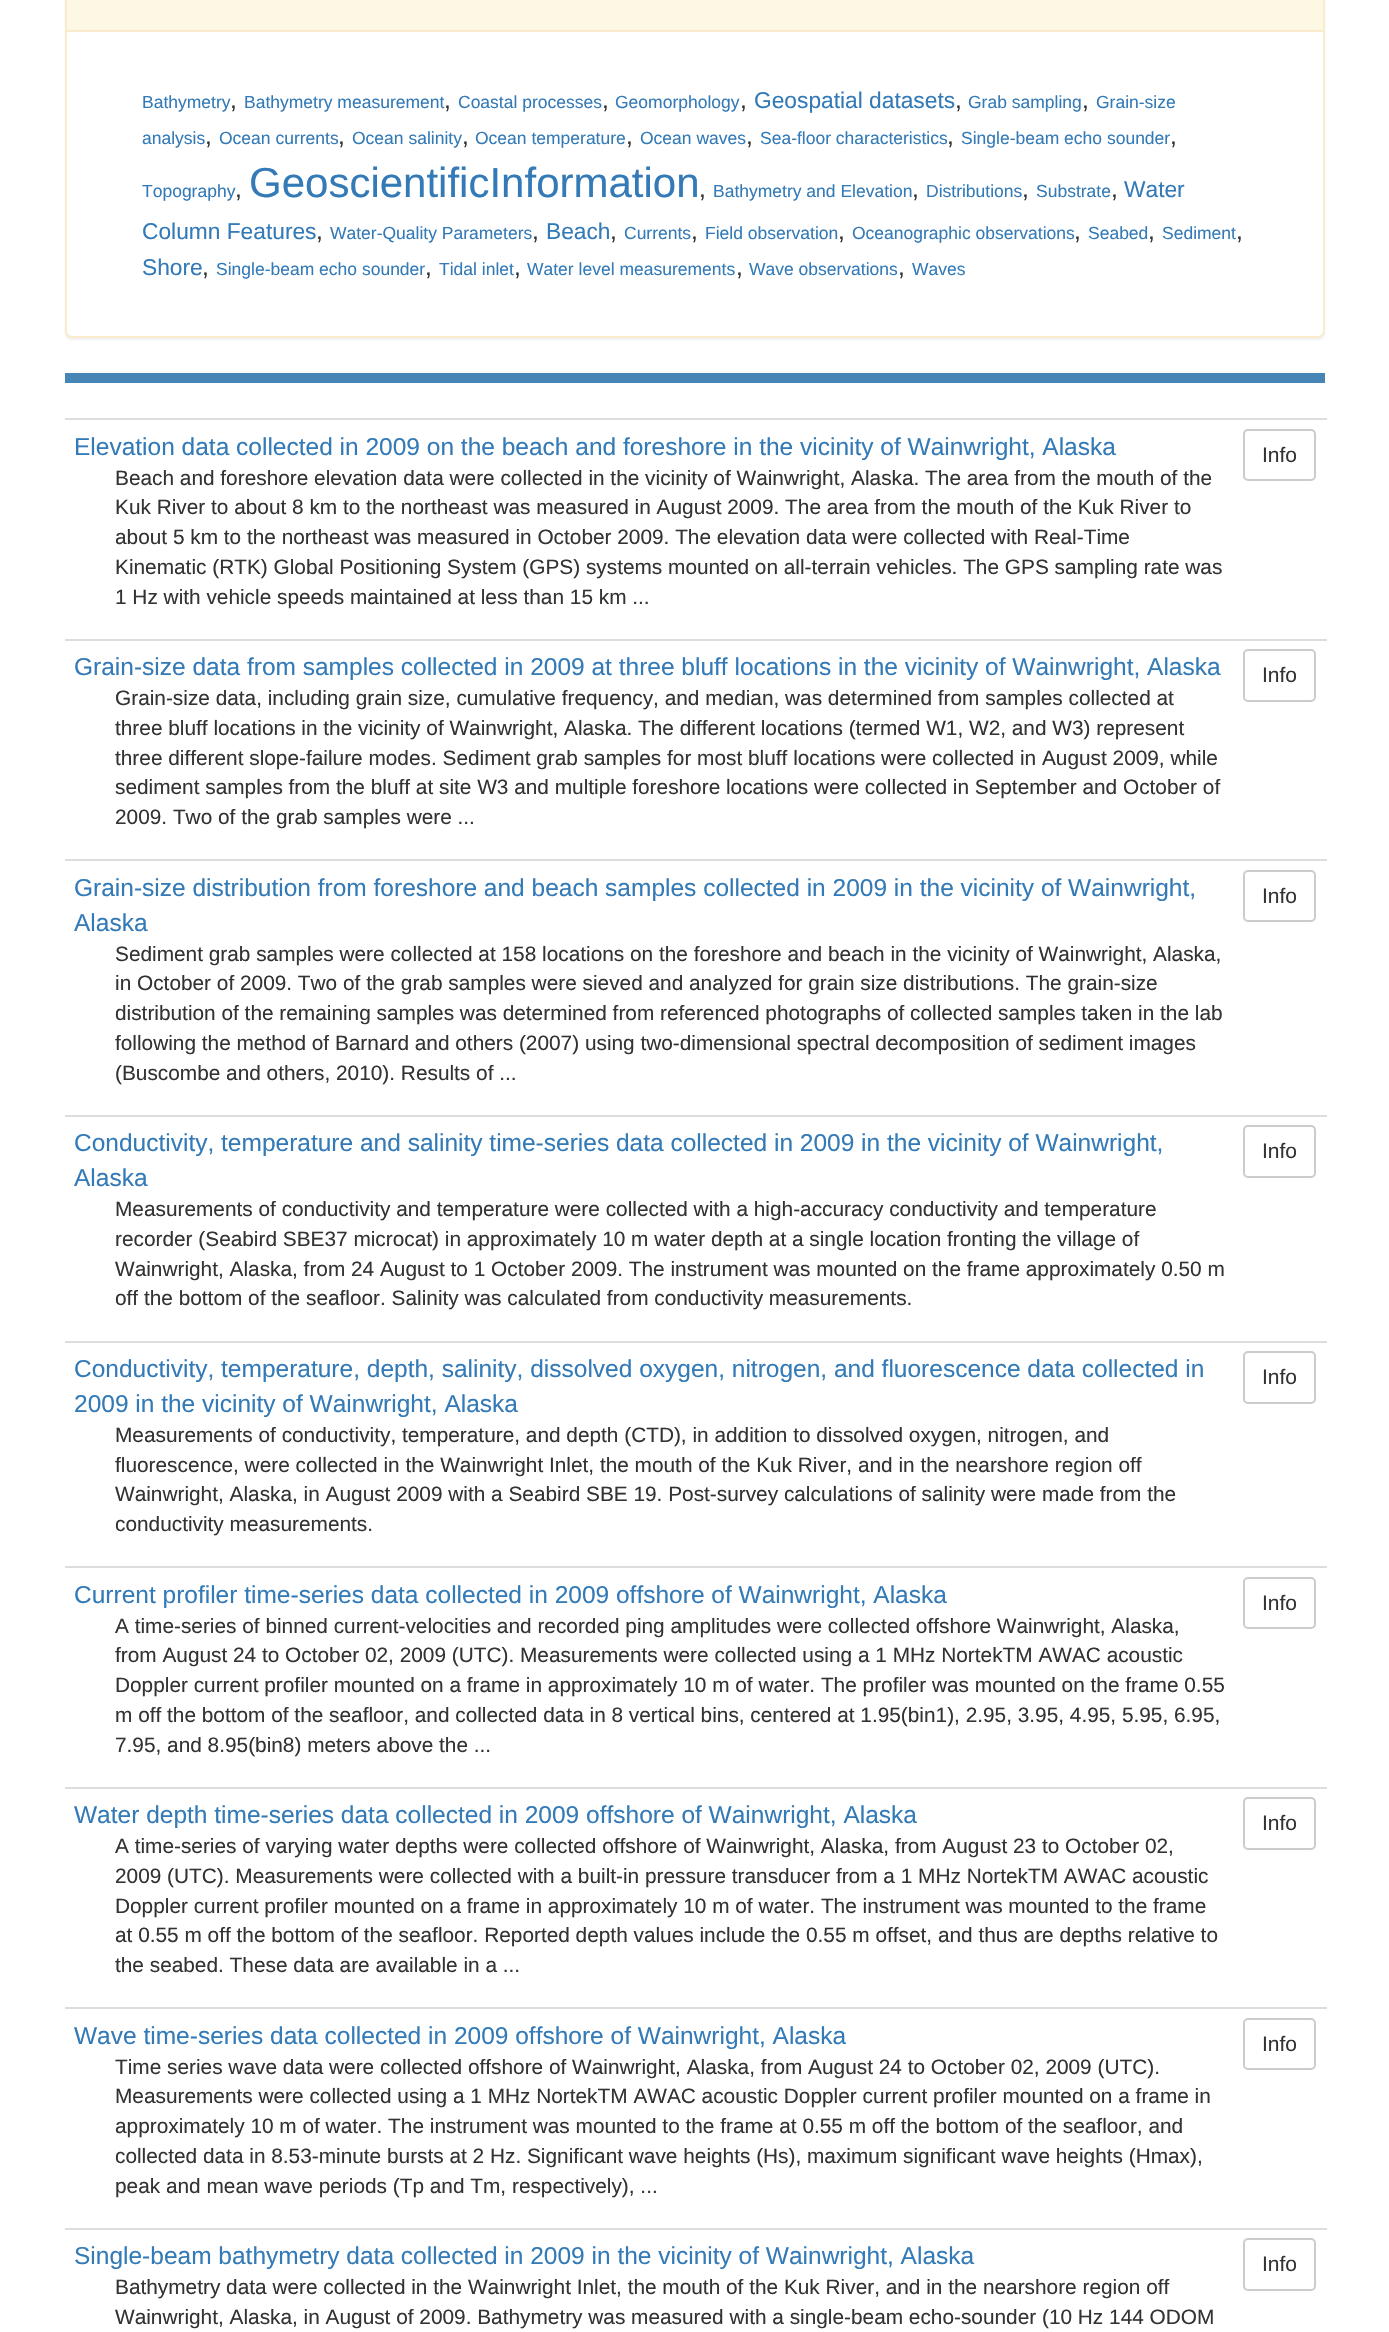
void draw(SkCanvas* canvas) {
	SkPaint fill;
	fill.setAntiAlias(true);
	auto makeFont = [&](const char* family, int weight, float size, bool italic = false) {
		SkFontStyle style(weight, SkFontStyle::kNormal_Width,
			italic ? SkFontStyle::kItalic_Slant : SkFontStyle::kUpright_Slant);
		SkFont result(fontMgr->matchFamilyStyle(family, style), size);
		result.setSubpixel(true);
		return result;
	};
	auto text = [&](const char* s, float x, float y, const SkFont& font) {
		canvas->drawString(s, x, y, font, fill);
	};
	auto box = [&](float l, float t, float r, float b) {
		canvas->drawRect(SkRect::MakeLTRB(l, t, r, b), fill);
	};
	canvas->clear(0xFFFFFFFF);
	fill.setColor(0x0D000000);
	fill.setMaskFilter(SkMaskFilter::MakeBlur(kNormal_SkBlurStyle, 1));
	canvas->drawRoundRect(SkRect::MakeLTRB(65, -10, 1325, 340), 7, 7, fill);
	fill.setMaskFilter(nullptr);
	fill.setColor(0xFFFFFFFF);
	canvas->drawRoundRect(SkRect::MakeLTRB(66, -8, 1324, 337), 6, 6, fill);
	fill.setStyle(SkPaint::kStroke_Style);
	fill.setStrokeWidth(2);
	fill.setColor(0xFFFAEBCC);
	canvas->drawRoundRect(SkRect::MakeLTRB(66, -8, 1324, 337), 6, 6, fill);
	fill.setStyle(SkPaint::kFill_Style);
	fill.setColor(0xFFFCF8E3);
	box(67, 0, 1323, 30);
	fill.setColor(0xFFFAEBCC);
	box(67, 30, 1323, 32);
	fill.setColor(0xFF4785B6);
	box(65, 373, 1325, 383);
	fill.setColor(0xFFDDDDDD);
	box(65, 418, 1327, 420);
	fill.setStyle(SkPaint::kStroke_Style);
	fill.setColor(0xFFCCCCCC);
	canvas->drawRoundRect(SkRect::MakeLTRB(1244, 430, 1315, 480), 4, 4, fill);
	fill.setStyle(SkPaint::kFill_Style);
	fill.setColor(0xFFDDDDDD);
	box(65, 639, 1327, 641);
	fill.setStyle(SkPaint::kStroke_Style);
	fill.setColor(0xFFCCCCCC);
	canvas->drawRoundRect(SkRect::MakeLTRB(1244, 650, 1315, 701), 4, 4, fill);
	fill.setStyle(SkPaint::kFill_Style);
	fill.setColor(0xFFDDDDDD);
	box(65, 859, 1327, 861);
	fill.setStyle(SkPaint::kStroke_Style);
	fill.setColor(0xFFCCCCCC);
	canvas->drawRoundRect(SkRect::MakeLTRB(1244, 871, 1315, 921), 4, 4, fill);
	fill.setStyle(SkPaint::kFill_Style);
	fill.setColor(0xFFDDDDDD);
	box(65, 1115, 1327, 1117);
	fill.setStyle(SkPaint::kStroke_Style);
	fill.setColor(0xFFCCCCCC);
	canvas->drawRoundRect(SkRect::MakeLTRB(1244, 1126, 1315, 1177), 4, 4, fill);
	fill.setStyle(SkPaint::kFill_Style);
	fill.setColor(0xFFDDDDDD);
	box(65, 1341, 1327, 1343);
	fill.setStyle(SkPaint::kStroke_Style);
	fill.setColor(0xFFCCCCCC);
	canvas->drawRoundRect(SkRect::MakeLTRB(1244, 1352, 1315, 1403), 4, 4, fill);
	fill.setStyle(SkPaint::kFill_Style);
	fill.setColor(0xFFDDDDDD);
	box(65, 1566, 1327, 1568);
	fill.setStyle(SkPaint::kStroke_Style);
	fill.setColor(0xFFCCCCCC);
	canvas->drawRoundRect(SkRect::MakeLTRB(1244, 1578, 1315, 1628), 4, 4, fill);
	fill.setStyle(SkPaint::kFill_Style);
	fill.setColor(0xFFDDDDDD);
	box(65, 1787, 1327, 1789);
	fill.setStyle(SkPaint::kStroke_Style);
	fill.setColor(0xFFCCCCCC);
	canvas->drawRoundRect(SkRect::MakeLTRB(1244, 1798, 1315, 1849), 4, 4, fill);
	fill.setStyle(SkPaint::kFill_Style);
	fill.setColor(0xFFDDDDDD);
	box(65, 2007, 1327, 2009);
	fill.setStyle(SkPaint::kStroke_Style);
	fill.setColor(0xFFCCCCCC);
	canvas->drawRoundRect(SkRect::MakeLTRB(1244, 2019, 1315, 2069), 4, 4, fill);
	fill.setStyle(SkPaint::kFill_Style);
	fill.setColor(0xFFDDDDDD);
	box(65, 2228, 1327, 2230);
	fill.setStyle(SkPaint::kStroke_Style);
	fill.setColor(0xFFCCCCCC);
	canvas->drawRoundRect(SkRect::MakeLTRB(1244, 2239, 1315, 2290), 4, 4, fill);
	auto font1 = makeFont("Liberation Sans", 400, 17.5f);
	fill.setStyle(SkPaint::kFill_Style);
	fill.setColor(0xFF337AB7);
	text("Bathymetry", 142, 108, font1);
	auto font2 = makeFont("Liberation Sans", 400, 24.5f);
	fill.setColor(0xFF333333);
	text(",", 230, 108, font2);
	fill.setColor(0xFF337AB7);
	text("Bathymetry measurement", 244, 108, font1);
	fill.setColor(0xFF333333);
	text(",", 444, 108, font2);
	fill.setColor(0xFF337AB7);
	text("Coastal processes", 458, 108, font1);
	fill.setColor(0xFF333333);
	text(",", 602, 108, font2);
	fill.setColor(0xFF337AB7);
	text("Geomorphology", 615, 108, font1);
	fill.setColor(0xFF333333);
	text(",", 740, 108, font2);
	auto font3 = makeFont("Liberation Sans", 400, 22.75f);
	fill.setColor(0xFF337AB7);
	text("Geospatial datasets", 754, 108, font3);
	fill.setColor(0xFF333333);
	text(",", 955, 108, font2);
	fill.setColor(0xFF337AB7);
	text("Grab sampling", 968, 108, font1);
	fill.setColor(0xFF333333);
	text(",", 1082, 108, font2);
	fill.setColor(0xFF337AB7);
	text("Grain-size", 1096, 108, font1);
	text("analysis", 142, 144, font1);
	fill.setColor(0xFF333333);
	text(",", 205, 144, font2);
	fill.setColor(0xFF337AB7);
	text("Ocean currents", 219, 144, font1);
	fill.setColor(0xFF333333);
	text(",", 338, 144, font2);
	fill.setColor(0xFF337AB7);
	text("Ocean salinity", 352, 144, font1);
	fill.setColor(0xFF333333);
	text(",", 462, 144, font2);
	fill.setColor(0xFF337AB7);
	text("Ocean temperature", 475, 144, font1);
	fill.setColor(0xFF333333);
	text(",", 626, 144, font2);
	fill.setColor(0xFF337AB7);
	text("Ocean waves", 640, 144, font1);
	fill.setColor(0xFF333333);
	text(",", 746, 144, font2);
	fill.setColor(0xFF337AB7);
	text("Sea-floor characteristics", 760, 144, font1);
	fill.setColor(0xFF333333);
	text(",", 947, 144, font2);
	fill.setColor(0xFF337AB7);
	text("Single-beam echo sounder", 961, 144, font1);
	fill.setColor(0xFF333333);
	text(",", 1170, 144, font2);
	fill.setColor(0xFF337AB7);
	text("Topography", 142, 197, font1);
	fill.setColor(0xFF333333);
	text(",", 235, 197, font2);
	auto font4 = makeFont("Liberation Sans", 400, 42);
	fill.setColor(0xFF337AB7);
	text("GeoscientificInformation", 249, 197, font4);
	fill.setColor(0xFF333333);
	text(",", 699, 197, font2);
	fill.setColor(0xFF337AB7);
	text("Bathymetry and Elevation", 713, 197, font1);
	fill.setColor(0xFF333333);
	text(",", 912, 197, font2);
	fill.setColor(0xFF337AB7);
	text("Distributions", 926, 197, font1);
	fill.setColor(0xFF333333);
	text(",", 1022, 197, font2);
	fill.setColor(0xFF337AB7);
	text("Substrate", 1036, 197, font1);
	fill.setColor(0xFF333333);
	text(",", 1111, 197, font2);
	fill.setColor(0xFF337AB7);
	text("Water", 1124, 197, font3);
	text("Column Features", 142, 239, font3);
	fill.setColor(0xFF333333);
	text(",", 316, 239, font2);
	fill.setColor(0xFF337AB7);
	text("Water-Quality Parameters", 330, 239, font1);
	fill.setColor(0xFF333333);
	text(",", 532, 239, font2);
	fill.setColor(0xFF337AB7);
	text("Beach", 546, 239, font3);
	fill.setColor(0xFF333333);
	text(",", 610, 239, font2);
	fill.setColor(0xFF337AB7);
	text("Currents", 624, 239, font1);
	fill.setColor(0xFF333333);
	text(",", 691, 239, font2);
	fill.setColor(0xFF337AB7);
	text("Field observation", 705, 239, font1);
	fill.setColor(0xFF333333);
	text(",", 838, 239, font2);
	fill.setColor(0xFF337AB7);
	text("Oceanographic observations", 852, 239, font1);
	fill.setColor(0xFF333333);
	text(",", 1074, 239, font2);
	fill.setColor(0xFF337AB7);
	text("Seabed", 1088, 239, font1);
	fill.setColor(0xFF333333);
	text(",", 1148, 239, font2);
	fill.setColor(0xFF337AB7);
	text("Sediment", 1162, 239, font1);
	fill.setColor(0xFF333333);
	text(",", 1236, 239, font2);
	fill.setColor(0xFF337AB7);
	text("Shore", 142, 275, font3);
	fill.setColor(0xFF333333);
	text(",", 202, 275, font2);
	fill.setColor(0xFF337AB7);
	text("Single-beam echo sounder", 216, 275, font1);
	fill.setColor(0xFF333333);
	text(",", 425, 275, font2);
	fill.setColor(0xFF337AB7);
	text("Tidal inlet", 439, 275, font1);
	fill.setColor(0xFF333333);
	text(",", 514, 275, font2);
	fill.setColor(0xFF337AB7);
	text("Water level measurements", 527, 275, font1);
	fill.setColor(0xFF333333);
	text(",", 736, 275, font2);
	fill.setColor(0xFF337AB7);
	text("Wave observations", 749, 275, font1);
	fill.setColor(0xFF333333);
	text(",", 898, 275, font2);
	fill.setColor(0xFF337AB7);
	text("Waves", 912, 275, font1);
	text("Elevation data collected in 2009 on the beach and foreshore in the vicinity of Wainwright, Alaska", 74, 455, font2);
	auto font5 = makeFont("Liberation Sans", 400, 20.82f);
	fill.setColor(0xFF333333);
	text("Beach and foreshore elevation data were collected in the vicinity of Wainwright, Alaska. The area from the mouth of the", 115, 485, font5);
	text("Kuk River to about 8 km to the northeast was measured in August 2009. The area from the mouth of the Kuk River to", 115, 514, font5);
	text("about 5 km to the northeast was measured in October 2009. The elevation data were collected with Real-Time", 115, 544, font5);
	text("Kinematic (RTK) Global Positioning System (GPS) systems mounted on all-terrain vehicles. The GPS sampling rate was", 115, 574, font5);
	text("1 Hz with vehicle speeds maintained at less than 15 km ...", 115, 604, font5);
	auto font6 = makeFont("Liberation Sans", 400, 21);
	text("Info", 1262, 462, font6);
	fill.setColor(0xFF337AB7);
	text("Grain-size data from samples collected in 2009 at three bluff locations in the vicinity of Wainwright, Alaska", 74, 675, font2);
	fill.setColor(0xFF333333);
	text("Grain-size data, including grain size, cumulative frequency, and median, was determined from samples collected at", 115, 705, font5);
	text("three bluff locations in the vicinity of Wainwright, Alaska. The different locations (termed W1, W2, and W3) represent", 115, 735, font5);
	text("three different slope-failure modes. Sediment grab samples for most bluff locations were collected in August 2009, while", 115, 765, font5);
	text("sediment samples from the bluff at site W3 and multiple foreshore locations were collected in September and October of", 115, 794, font5);
	text("2009. Two of the grab samples were ...", 115, 824, font5);
	text("Info", 1262, 682, font6);
	fill.setColor(0xFF337AB7);
	text("Grain-size distribution from foreshore and beach samples collected in 2009 in the vicinity of Wainwright,", 74, 896, font2);
	text("Alaska", 74, 931, font2);
	fill.setColor(0xFF333333);
	text("Sediment grab samples were collected at 158 locations on the foreshore and beach in the vicinity of Wainwright, Alaska,", 115, 961, font5);
	text("in October of 2009. Two of the grab samples were sieved and analyzed for grain size distributions. The grain-size", 115, 990, font5);
	text("distribution of the remaining samples was determined from referenced photographs of collected samples taken in the lab", 115, 1020, font5);
	text("following the method of Barnard and others (2007) using two-dimensional spectral decomposition of sediment images", 115, 1050, font5);
	text("(Buscombe and others, 2010). Results of ...", 115, 1080, font5);
	text("Info", 1262, 903, font6);
	fill.setColor(0xFF337AB7);
	text("Conductivity, temperature and salinity time-series data collected in 2009 in the vicinity of Wainwright,", 74, 1151, font2);
	text("Alaska", 74, 1186, font2);
	fill.setColor(0xFF333333);
	text("Measurements of conductivity and temperature were collected with a high-accuracy conductivity and temperature", 115, 1216, font5);
	text("recorder (Seabird SBE37 microcat) in approximately 10 m water depth at a single location fronting the village of", 115, 1246, font5);
	text("Wainwright, Alaska, from 24 August to 1 October 2009. The instrument was mounted on the frame approximately 0.50 m", 115, 1276, font5);
	text("off the bottom of the seafloor. Salinity was calculated from conductivity measurements.", 115, 1305, font5);
	text("Info", 1262, 1158, font6);
	fill.setColor(0xFF337AB7);
	text("Conductivity, temperature, depth, salinity, dissolved oxygen, nitrogen, and fluorescence data collected in", 74, 1377, font2);
	text("2009 in the vicinity of Wainwright, Alaska", 74, 1412, font2);
	fill.setColor(0xFF333333);
	text("Measurements of conductivity, temperature, and depth (CTD), in addition to dissolved oxygen, nitrogen, and", 115, 1442, font5);
	text("fluorescence, were collected in the Wainwright Inlet, the mouth of the Kuk River, and in the nearshore region off", 115, 1472, font5);
	text("Wainwright, Alaska, in August 2009 with a Seabird SBE 19. Post-survey calculations of salinity were made from the", 115, 1501, font5);
	text("conductivity measurements.", 115, 1531, font5);
	text("Info", 1262, 1384, font6);
	fill.setColor(0xFF337AB7);
	text("Current profiler time-series data collected in 2009 offshore of Wainwright, Alaska", 74, 1603, font2);
	fill.setColor(0xFF333333);
	text("A time-series of binned current-velocities and recorded ping amplitudes were collected offshore Wainwright, Alaska,", 115, 1633, font5);
	text("from August 24 to October 02, 2009 (UTC). Measurements were collected using a 1 MHz NortekTM AWAC acoustic", 115, 1662, font5);
	text("Doppler current profiler mounted on a frame in approximately 10 m of water. The profiler was mounted on the frame 0.55", 115, 1692, font5);
	text("m off the bottom of the seafloor, and collected data in 8 vertical bins, centered at 1.95(bin1), 2.95, 3.95, 4.95, 5.95, 6.95,", 115, 1722, font5);
	text("7.95, and 8.95(bin8) meters above the ...", 115, 1752, font5);
	text("Info", 1262, 1610, font6);
	fill.setColor(0xFF337AB7);
	text("Water depth time-series data collected in 2009 offshore of Wainwright, Alaska", 74, 1823, font2);
	fill.setColor(0xFF333333);
	text("A time-series of varying water depths were collected offshore of Wainwright, Alaska, from August 23 to October 02,", 115, 1853, font5);
	text("2009 (UTC). Measurements were collected with a built-in pressure transducer from a 1 MHz NortekTM AWAC acoustic", 115, 1883, font5);
	text("Doppler current profiler mounted on a frame in approximately 10 m of water. The instrument was mounted to the frame", 115, 1913, font5);
	text("at 0.55 m off the bottom of the seafloor. Reported depth values include the 0.55 m offset, and thus are depths relative to", 115, 1942, font5);
	text("the seabed. These data are available in a ...", 115, 1972, font5);
	text("Info", 1262, 1830, font6);
	fill.setColor(0xFF337AB7);
	text("Wave time-series data collected in 2009 offshore of Wainwright, Alaska", 74, 2044, font2);
	fill.setColor(0xFF333333);
	text("Time series wave data were collected offshore of Wainwright, Alaska, from August 24 to October 02, 2009 (UTC).", 115, 2074, font5);
	text("Measurements were collected using a 1 MHz NortekTM AWAC acoustic Doppler current profiler mounted on a frame in", 115, 2103, font5);
	text("approximately 10 m of water. The instrument was mounted to the frame at 0.55 m off the bottom of the seafloor, and", 115, 2133, font5);
	text("collected data in 8.53-minute bursts at 2 Hz. Significant wave heights (Hs), maximum significant wave heights (Hmax),", 115, 2163, font5);
	text("peak and mean wave periods (Tp and Tm, respectively), ...", 115, 2193, font5);
	text("Info", 1262, 2051, font6);
	fill.setColor(0xFF337AB7);
	text("Single-beam bathymetry data collected in 2009 in the vicinity of Wainwright, Alaska", 74, 2264, font2);
	fill.setColor(0xFF333333);
	text("Bathymetry data were collected in the Wainwright Inlet, the mouth of the Kuk River, and in the nearshore region off", 115, 2294, font5);
	text("Wainwright, Alaska, in August of 2009. Bathymetry was measured with a single-beam echo-sounder (10 Hz 144 ODOM", 115, 2324, font5);
	text("Info", 1262, 2271, font6);
}
